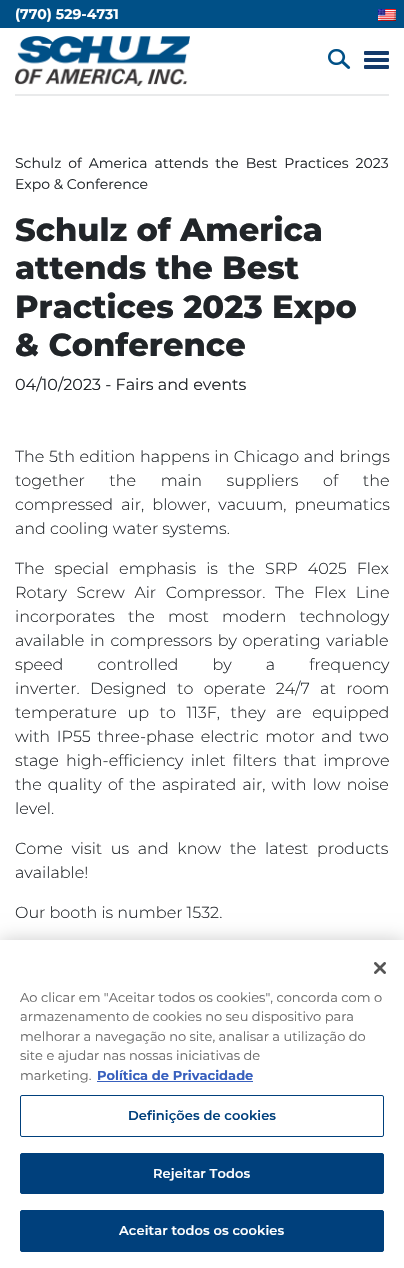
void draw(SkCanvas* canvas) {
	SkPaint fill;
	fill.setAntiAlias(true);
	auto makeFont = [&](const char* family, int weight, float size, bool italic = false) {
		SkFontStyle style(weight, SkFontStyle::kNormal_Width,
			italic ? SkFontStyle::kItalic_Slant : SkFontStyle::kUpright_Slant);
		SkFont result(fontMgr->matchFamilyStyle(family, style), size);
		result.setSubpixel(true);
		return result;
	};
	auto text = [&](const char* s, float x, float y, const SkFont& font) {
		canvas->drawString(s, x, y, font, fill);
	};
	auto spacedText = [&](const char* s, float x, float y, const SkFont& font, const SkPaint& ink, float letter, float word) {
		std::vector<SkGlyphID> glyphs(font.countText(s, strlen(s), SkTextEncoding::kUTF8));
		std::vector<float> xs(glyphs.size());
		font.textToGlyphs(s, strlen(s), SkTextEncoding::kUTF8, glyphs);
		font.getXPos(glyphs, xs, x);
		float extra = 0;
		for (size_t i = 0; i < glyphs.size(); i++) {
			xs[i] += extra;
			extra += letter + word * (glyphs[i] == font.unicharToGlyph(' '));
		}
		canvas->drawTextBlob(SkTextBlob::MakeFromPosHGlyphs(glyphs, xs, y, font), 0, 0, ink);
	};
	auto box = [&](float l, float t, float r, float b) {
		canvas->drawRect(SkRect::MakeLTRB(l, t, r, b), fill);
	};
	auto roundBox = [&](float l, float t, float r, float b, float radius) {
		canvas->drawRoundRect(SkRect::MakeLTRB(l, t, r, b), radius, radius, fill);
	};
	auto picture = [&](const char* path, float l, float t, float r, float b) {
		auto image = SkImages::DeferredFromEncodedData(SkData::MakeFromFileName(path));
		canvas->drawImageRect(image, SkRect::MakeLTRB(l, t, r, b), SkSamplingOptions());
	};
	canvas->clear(0xFFFFFFFF);
	fill.setColor(0xFF005087);
	box(0, 0, 404, 28);
	picture("image0.png", 378, 9, 396, 21);
	fill.setColor(0xFFE9EAEB);
	box(15, 94, 389, 96);
	picture("image1.png", 15, 36, 190, 86);
	picture("image2.png", 328, 49, 351, 69);
	fill.setColor(0xFF133A6B);
	roundBox(364, 58, 389, 62, 1);
	roundBox(364, 51, 389, 55, 1);
	roundBox(364, 65, 389, 69, 1);
	fill.setColor(0x33000000);
	fill.setMaskFilter(SkMaskFilter::MakeBlur(kNormal_SkBlurStyle, 9));
	canvas->drawRect(SkRect::MakeLTRB(0, 940, 404, 1268), fill);
	fill.setMaskFilter(nullptr);
	fill.setColor(0xFFFFFFFF);
	box(0, 940, 404, 1268);
	picture("image3.png", 374, 962, 386, 974);
	fill.setColor(0xFF3860BE);
	box(97, 1081, 253, 1082);
	fill.setStyle(SkPaint::kStroke_Style);
	fill.setStrokeWidth(1);
	fill.setColor(0xFF00407C);
	canvas->drawRoundRect(SkRect::MakeLTRB(20.5f, 1095.5f, 383.5f, 1136.5f), 1.5f, 1.5f, fill);
	fill.setStyle(SkPaint::kFill_Style);
	canvas->drawRoundRect(SkRect::MakeLTRB(20.5f, 1153.5f, 383.5f, 1193.5f), 1.5f, 1.5f, fill);
	fill.setStyle(SkPaint::kStroke_Style);
	canvas->drawRoundRect(SkRect::MakeLTRB(20.5f, 1153.5f, 383.5f, 1193.5f), 1.5f, 1.5f, fill);
	fill.setStyle(SkPaint::kFill_Style);
	canvas->drawRoundRect(SkRect::MakeLTRB(20.5f, 1210.5f, 383.5f, 1251.5f), 1.5f, 1.5f, fill);
	fill.setStyle(SkPaint::kStroke_Style);
	canvas->drawRoundRect(SkRect::MakeLTRB(20.5f, 1210.5f, 383.5f, 1251.5f), 1.5f, 1.5f, fill);
	auto font1 = makeFont("Montserrat", 700, 14);
	fill.setStyle(SkPaint::kFill_Style);
	fill.setColor(0xFFFFFFFF);
	text("(770) 529-4731", 15, 19, font1);
	auto font2 = makeFont("Montserrat", 400, 14);
	fill.setColor(0xFF212529);
	spacedText("Schulz of America attends the Best Practices 2023", 15, 168, font2, fill, 0, 3.25f);
	text("Expo & Conference", 15, 189, font2);
	auto font3 = makeFont("Montserrat", 800, 32);
	text("Schulz of America", 15, 241, font3);
	text("attends the Best", 15, 279, font3);
	text("Practices 2023 Expo", 15, 318, font3);
	text("& Conference", 15, 356, font3);
	auto font4 = makeFont("Montserrat", 400, 16);
	text("04/10/2023 - Fairs and events", 15, 390, font4);
	auto font5 = makeFont("Montserrat", 300, 16);
	spacedText("The 5th edition happens in Chicago and brings", 15, 462, font5, fill, 0, 0.5f);
	spacedText("together the main suppliers of the", 15, 486, font5, fill, 0, 20.5f);
	spacedText("compressed air, blower, vacuum, pneumatics", 15, 510, font5, fill, 0, 4);
	text("and cooling water systems.", 15, 534, font5);
	spacedText("The special emphasis is the SRP 4025 Flex", 15, 574, font5, fill, 0, 6);
	spacedText("Rotary Screw Air Compressor. The Flex Line", 15, 598, font5, fill, 0, 5.5f);
	spacedText("incorporates the most modern technology", 15, 622, font5, fill, 0, 9);
	spacedText("available in compressors by operating variable", 15, 646, font5, fill, 0, 1.5f);
	spacedText("speed controlled by a frequency", 15, 670, font5, fill, 0, 30);
	spacedText("inverter. Designed to operate 24/7 at room", 15, 694, font5, fill, 0, 6.25f);
	spacedText("temperature up to 113F, they are equipped", 15, 718, font5, fill, 0, 6.5f);
	spacedText("with IP55 three-phase electric motor and two", 15, 742, font5, fill, 0, 2.5f);
	spacedText("stage high-efficiency inlet filters that improve", 15, 766, font5, fill, 0, 3);
	spacedText("the quality of the aspirated air, with low noise", 15, 790, font5, fill, 0, 2);
	text("level.", 15, 814, font5);
	spacedText("Come visit us and know the latest products", 15, 854, font5, fill, 0, 4.5f);
	text("available!", 15, 878, font5);
	text("Our booth is number 1532.", 15, 918, font5);
	auto font6 = makeFont("Montserrat", 400, 13);
	fill.setColor(0xFF696969);
	text("Ao clicar em \"Aceitar todos os cookies\", concorda com o", 20, 1002, font6);
	text("armazenamento de cookies no seu dispositivo para", 20, 1021, font6);
	text("melhorar a navegação no site, analisar a utilização do", 20, 1041, font6);
	text("site e ajudar nas nossas iniciativas de", 20, 1060, font6);
	text("marketing.", 20, 1080, font6);
	auto font7 = makeFont("Montserrat", 700, 13);
	fill.setColor(0xFF3860BE);
	text("Política de Privacidade", 97, 1080, font7);
	auto font8 = makeFont("Montserrat", 600, 13);
	fill.setColor(0xFF00407C);
	spacedText("Definições de cookies", 128, 1120, font8, fill, 0.1f, 0);
	fill.setColor(0xFFFFFFFF);
	spacedText("Rejeitar Todos", 153, 1178, font8, fill, 0.1f, 0);
	spacedText("Aceitar todos os cookies", 119, 1235, font8, fill, 0.1f, 0);
}
